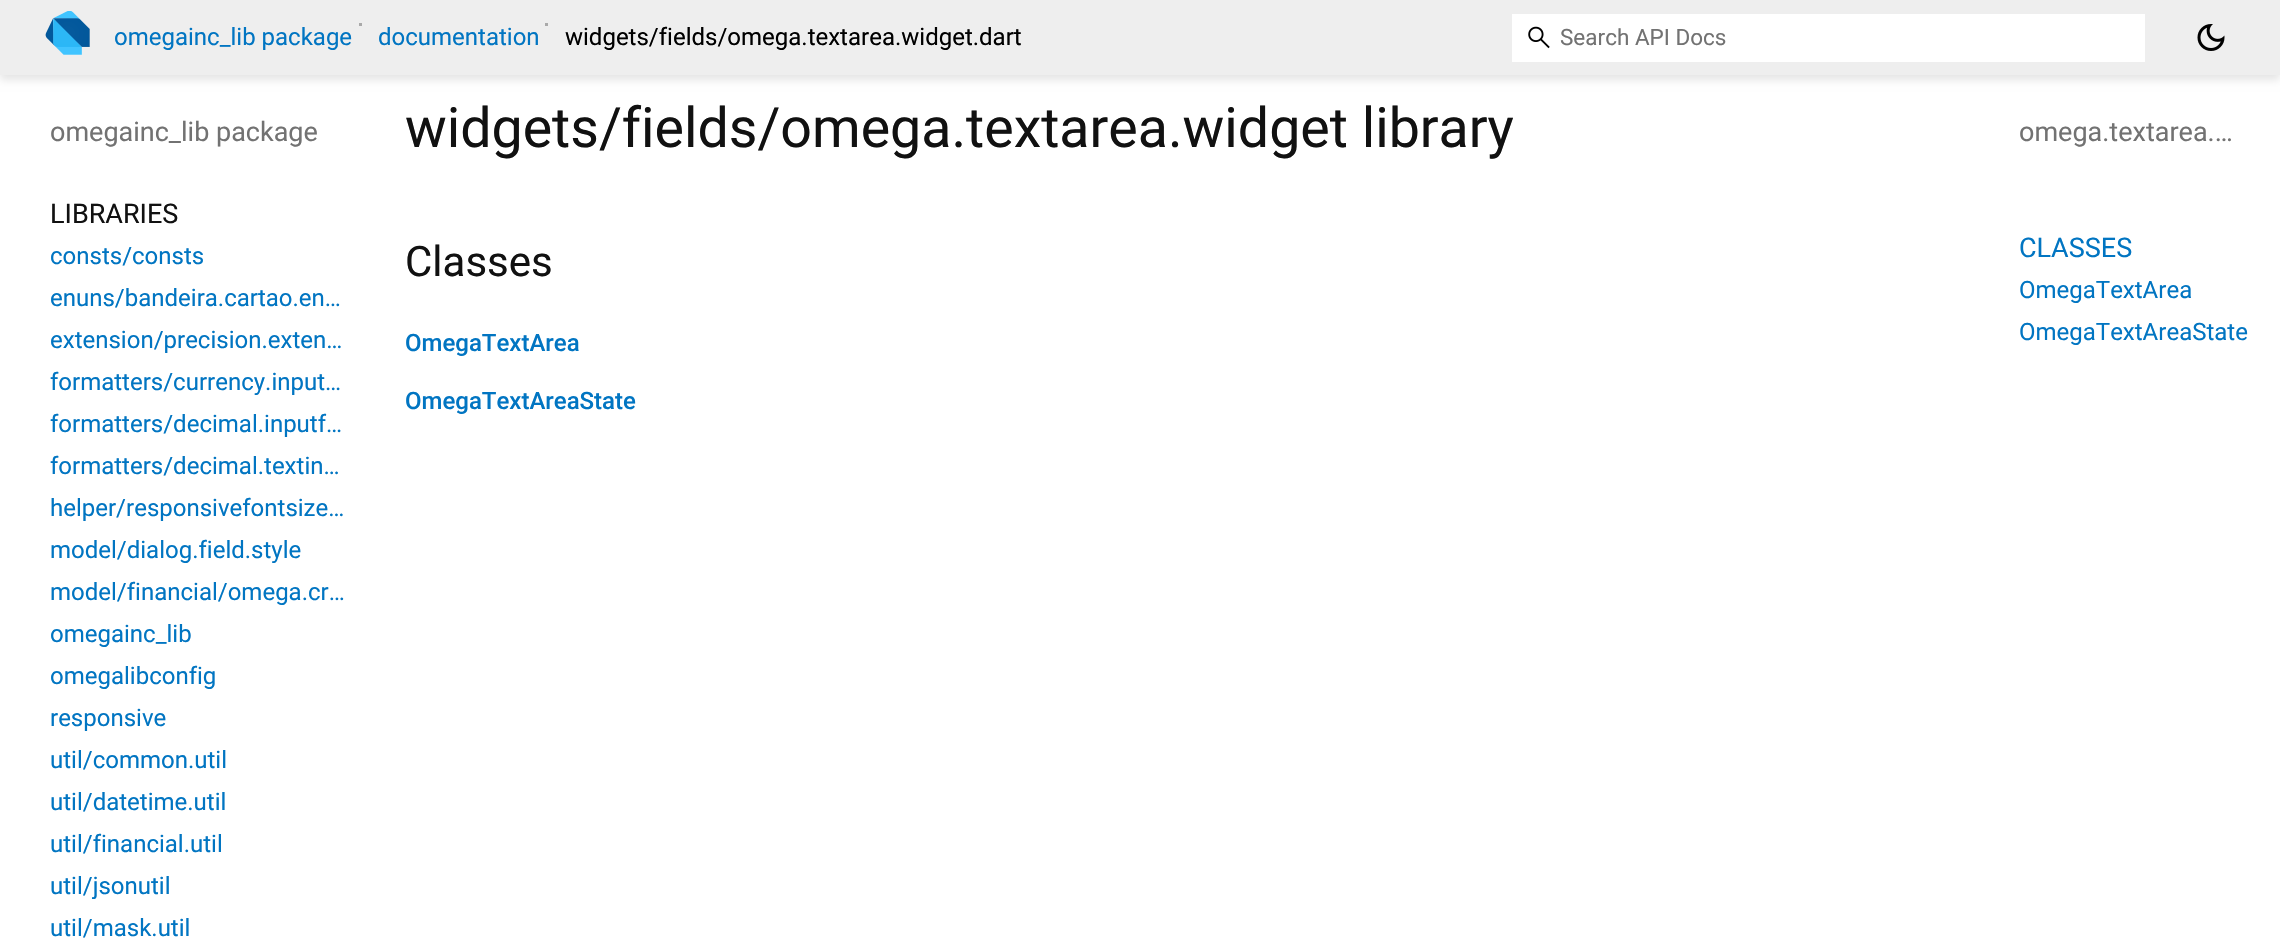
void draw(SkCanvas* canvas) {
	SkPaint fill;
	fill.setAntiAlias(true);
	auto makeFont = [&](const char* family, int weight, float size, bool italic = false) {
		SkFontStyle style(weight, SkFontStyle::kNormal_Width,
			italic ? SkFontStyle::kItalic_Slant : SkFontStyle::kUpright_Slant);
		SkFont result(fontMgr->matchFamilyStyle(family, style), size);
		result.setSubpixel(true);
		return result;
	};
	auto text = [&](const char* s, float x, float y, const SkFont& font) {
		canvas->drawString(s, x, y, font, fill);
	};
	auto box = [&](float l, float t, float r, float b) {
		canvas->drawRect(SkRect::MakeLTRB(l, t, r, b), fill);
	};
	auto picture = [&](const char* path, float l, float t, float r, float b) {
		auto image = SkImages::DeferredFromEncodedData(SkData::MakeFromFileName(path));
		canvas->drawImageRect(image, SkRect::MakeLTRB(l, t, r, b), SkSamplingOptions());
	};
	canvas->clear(0xFFFFFFFF);
	fill.setColor(0x1A000000);
	fill.setMaskFilter(SkMaskFilter::MakeBlur(kNormal_SkBlurStyle, 4));
	canvas->drawRect(SkRect::MakeLTRB(0, 5, 2280, 80), fill);
	fill.setMaskFilter(nullptr);
	fill.setColor(0xFFEEEEEE);
	box(0, 0, 2280, 75);
	picture("image0.png", 45, 11, 90, 55);
	fill.setColor(0xFFA9A9A9);
	box(359, 23, 362, 26);
	box(545, 23, 548, 26);
	fill.setColor(0xFFFFFFFF);
	box(1512, 14, 2145, 62);
	picture("image1.png", 1528, 26, 1550, 49);
	picture("image2.png", 2197, 24, 2225, 51);
	auto font1 = makeFont("Roboto", 400, 24);
	fill.setColor(0xFF0175C2);
	text("omegainc_lib package", 114, 45, font1);
	text("documentation", 378, 45, font1);
	fill.setColor(0xFF000000);
	text("widgets/fields/omega.textarea.widget.dart", 565, 45, font1);
	auto font2 = makeFont("Roboto", 400, 22.5f);
	fill.setColor(0xFF727272);
	text("Search API Docs", 1560, 45, font2);
	auto font3 = makeFont("Roboto", 400, 27);
	text("omegainc_lib package", 50, 141, font3);
	fill.setColor(0xFF111111);
	text("LIBRARIES", 50, 223, font3);
	fill.setColor(0xFF0175C2);
	text("consts/consts", 50, 264, font1);
	text("enuns/bandeira.cartao.en…", 50, 306, font1);
	text("extension/precision.exten…", 50, 348, font1);
	text("formatters/currency.input…", 50, 390, font1);
	text("formatters/decimal.inputf…", 50, 432, font1);
	text("formatters/decimal.textin…", 50, 474, font1);
	text("helper/responsivefontsize…", 50, 516, font1);
	text("model/dialog.field.style", 50, 558, font1);
	text("model/financial/omega.cr…", 50, 600, font1);
	text("omegainc_lib", 50, 642, font1);
	text("omegalibconfig", 50, 684, font1);
	text("responsive", 50, 726, font1);
	text("util/common.util", 50, 768, font1);
	text("util/datetime.util", 50, 810, font1);
	text("util/financial.util", 50, 852, font1);
	text("util/jsonutil", 50, 894, font1);
	text("util/mask.util", 50, 936, font1);
	auto font4 = makeFont("Roboto", 400, 55.5f);
	fill.setColor(0xFF111111);
	text("widgets/fields/omega.textarea.widget library", 405, 147, font4);
	auto font5 = makeFont("Roboto", 400, 42);
	text("Classes", 405, 276, font5);
	auto font6 = makeFont("Roboto", 500, 24);
	fill.setColor(0xFF0175C2);
	text("OmegaTextArea", 405, 351, font6);
	text("OmegaTextAreaState", 405, 409, font6);
	fill.setColor(0xFF727272);
	text("omega.textarea.…", 2019, 141, font3);
	fill.setColor(0xFF0175C2);
	text("CLASSES", 2019, 257, font3);
	text("OmegaTextArea", 2019, 298, font1);
	text("OmegaTextAreaState", 2019, 340, font1);
}
